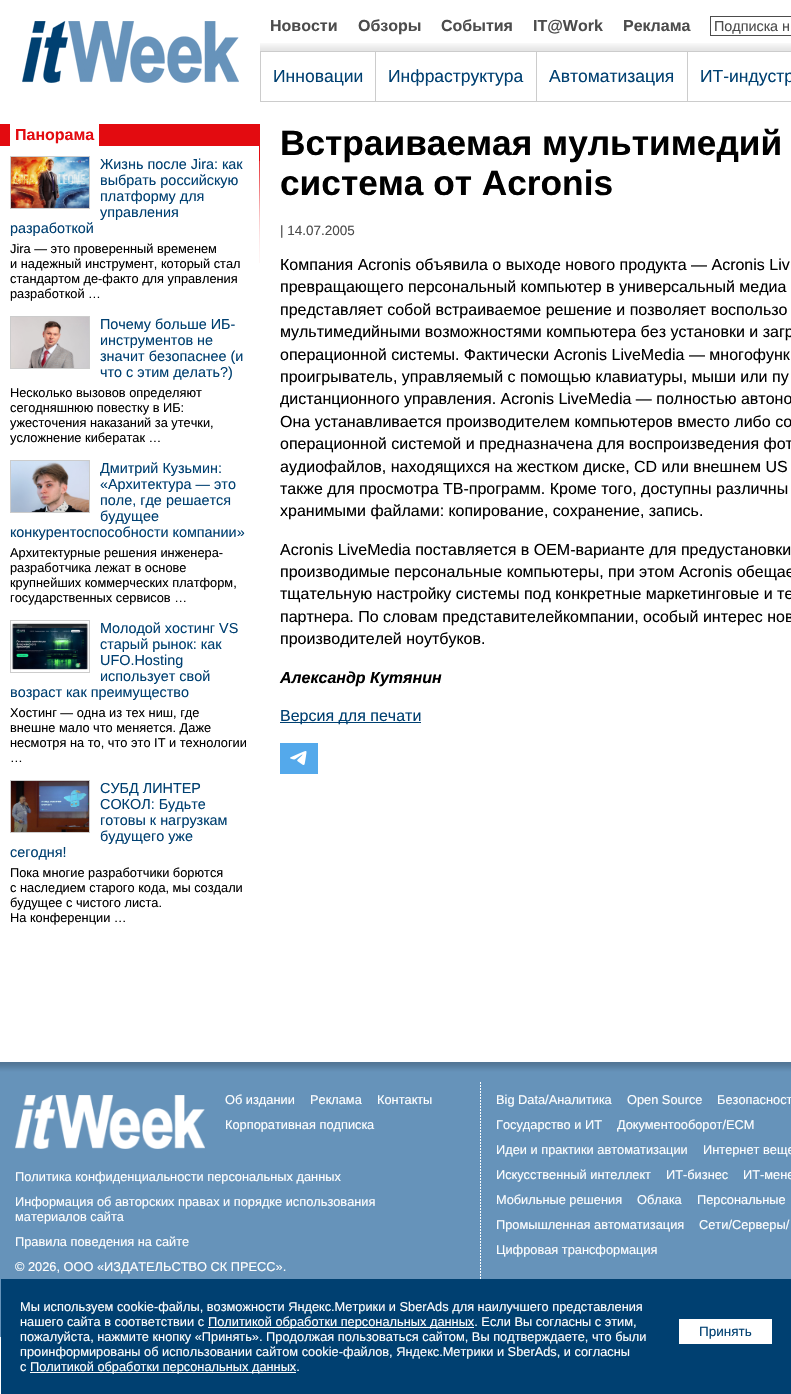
void draw(SkCanvas* canvas) {
	SkPaint fill;
	fill.setAntiAlias(true);
	auto makeFont = [&](const char* family, int weight, float size, bool italic = false) {
		SkFontStyle style(weight, SkFontStyle::kNormal_Width,
			italic ? SkFontStyle::kItalic_Slant : SkFontStyle::kUpright_Slant);
		SkFont result(fontMgr->matchFamilyStyle(family, style), size);
		result.setSubpixel(true);
		return result;
	};
	auto text = [&](const char* s, float x, float y, const SkFont& font) {
		canvas->drawString(s, x, y, font, fill);
	};
	auto box = [&](float l, float t, float r, float b) {
		canvas->drawRect(SkRect::MakeLTRB(l, t, r, b), fill);
	};
	auto picture = [&](const char* path, float l, float t, float r, float b) {
		auto image = SkImages::DeferredFromEncodedData(SkData::MakeFromFileName(path));
		canvas->drawImageRect(image, SkRect::MakeLTRB(l, t, r, b), SkSamplingOptions());
	};
	canvas->clear(0xFFFFFFFF);
	picture("image0.png", 22, 21, 239, 83);
	picture("image1.png", 260, 43, 791, 51);
	fill.setStyle(SkPaint::kStroke_Style);
	fill.setStrokeWidth(1);
	fill.setColor(0xFF4C4C4C);
	canvas->drawRect(SkRect::MakeLTRB(710.5f, 16.5f, 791.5f, 35.5f), fill);
	fill.setStyle(SkPaint::kFill_Style);
	fill.setColor(0xFFCCCCCC);
	box(687, 51, 791, 52);
	box(687, 101, 791, 102);
	box(687, 51, 688, 102);
	box(536, 51, 688, 52);
	box(536, 101, 688, 102);
	box(536, 51, 537, 102);
	box(375, 51, 537, 52);
	box(375, 101, 537, 102);
	box(375, 51, 376, 102);
	box(260, 51, 376, 52);
	box(260, 101, 376, 102);
	box(260, 51, 261, 102);
	fill.setColor(0xFFE30B10);
	box(0, 124, 260, 146);
	fill.setColor(0xFFFFFFFF);
	box(10, 124, 99, 146);
	fill.setStyle(SkPaint::kStroke_Style);
	fill.setColor(0xFFCCCCCC);
	canvas->drawRect(SkRect::MakeLTRB(10.5f, 156.5f, 89.5f, 208.5f), fill);
	picture("image2.png", 11, 157, 89, 208);
	canvas->drawRect(SkRect::MakeLTRB(10.5f, 316.5f, 89.5f, 368.5f), fill);
	picture("image3.png", 11, 317, 89, 368);
	canvas->drawRect(SkRect::MakeLTRB(10.5f, 460.5f, 89.5f, 512.5f), fill);
	picture("image4.png", 11, 461, 89, 512);
	canvas->drawRect(SkRect::MakeLTRB(10.5f, 620.5f, 89.5f, 672.5f), fill);
	picture("image5.png", 11, 622, 89, 670);
	canvas->drawRect(SkRect::MakeLTRB(10.5f, 780.5f, 89.5f, 832.5f), fill);
	picture("image6.png", 11, 781, 89, 832);
	picture("image7.png", 259, 146, 260, 263);
	fill.setStyle(SkPaint::kFill_Style);
	fill.setColor(0xFF004071);
	box(280, 722, 421, 723);
	picture("image8.png", 280, 743, 318, 774);
	picture("image9.png", 0, 1062, 791, 1337);
	picture("image10.png", 15, 1095, 205, 1149);
	picture("image11.png", 480, 1082, 481, 1279);
	box(1, 1279, 791, 1394);
	fill.setColor(0xFFFFFFFF);
	box(208, 1327, 474, 1328);
	box(679, 1319, 772, 1344);
	box(30, 1372, 296, 1373);
	auto font1 = makeFont("Liberation Sans", 700, 16);
	fill.setColor(0xFF4C4C4C);
	text("Новости", 270, 31, font1);
	text("Обзоры", 358, 31, font1);
	text("События", 441, 31, font1);
	text("IT@Work", 533, 31, font1);
	text("Реклама", 623, 31, font1);
	auto font2 = makeFont("Liberation Sans", 400, 14.4f);
	text("Подписка н", 714, 31, font2);
	auto font3 = makeFont("Liberation Sans", 400, 17.5f);
	fill.setColor(0xFF004071);
	text("Инновации", 273, 82, font3);
	text("Инфраструктура", 388, 82, font3);
	text("Автоматизация", 549, 82, font3);
	text("ИТ-индустр", 700, 82, font3);
	fill.setColor(0xFFE30B10);
	text("Панорама", 15, 140, font1);
	fill.setColor(0xFF004071);
	text("Жизнь после Jira: как", 100, 169, font2);
	text("выбрать российскую", 100, 185, font2);
	text("платформу для", 100, 201, font2);
	text("управления", 100, 217, font2);
	text("разработкой", 10, 233, font2);
	auto font4 = makeFont("Liberation Sans", 400, 12.8f);
	fill.setColor(0xFF000000);
	text("Jira — это проверенный временем", 10, 253, font4);
	text("и надежный инструмент, который стал", 10, 268, font4);
	text("стандартом де-факто для управления", 10, 283, font4);
	text("разработкой …", 10, 298, font4);
	fill.setColor(0xFF004071);
	text("Почему больше ИБ-", 100, 329, font2);
	text("инструментов не", 100, 345, font2);
	text("значит безопаснее (и", 100, 361, font2);
	text("что с этим делать?)", 100, 377, font2);
	fill.setColor(0xFF000000);
	text("Несколько вызовов определяют", 10, 397, font4);
	text("сегодняшнюю повестку в ИБ:", 10, 412, font4);
	text("ужесточения наказаний за утечки,", 10, 427, font4);
	text("усложнение кибератак …", 10, 442, font4);
	fill.setColor(0xFF004071);
	text("Дмитрий Кузьмин:", 100, 473, font2);
	text("«Архитектура — это", 100, 489, font2);
	text("поле, где решается", 100, 505, font2);
	text("будущее", 100, 521, font2);
	text("конкурентоспособности компании»", 10, 537, font2);
	fill.setColor(0xFF000000);
	text("Архитектурные решения инженера-", 10, 557, font4);
	text("разработчика лежат в основе", 10, 572, font4);
	text("крупнейших коммерческих платформ,", 10, 587, font4);
	text("государственных сервисов …", 10, 602, font4);
	fill.setColor(0xFF004071);
	text("Молодой хостинг VS", 100, 633, font2);
	text("старый рынок: как", 100, 649, font2);
	text("UFO.Hosting", 100, 665, font2);
	text("использует свой", 100, 681, font2);
	text("возраст как преимущество", 10, 697, font2);
	fill.setColor(0xFF000000);
	text("Хостинг — одна из тех ниш, где", 10, 717, font4);
	text("внешне мало что меняется. Даже", 10, 732, font4);
	text("несмотря на то, что это IT и технологии", 10, 747, font4);
	text("…", 10, 762, font4);
	fill.setColor(0xFF004071);
	text("СУБД ЛИНТЕР", 100, 793, font2);
	text("СОКОЛ: Будьте", 100, 809, font2);
	text("готовы к нагрузкам", 100, 825, font2);
	text("будущего уже", 100, 841, font2);
	text("сегодня!", 10, 857, font2);
	fill.setColor(0xFF000000);
	text("Пока многие разработчики борются", 10, 877, font4);
	text("с наследием старого кода, мы создали", 10, 892, font4);
	text("будущее с чистого листа.", 10, 907, font4);
	text("На конференции …", 10, 922, font4);
	auto font5 = makeFont("Liberation Sans", 700, 35.25f);
	text("Встраиваемая мультимедий", 280, 155, font5);
	text("система от Acronis", 280, 195, font5);
	auto font6 = makeFont("Liberation Sans", 400, 13.5f);
	fill.setColor(0xFF4C4C4C);
	text("| 14.07.2005", 280, 235, font6);
	auto font7 = makeFont("Liberation Sans", 400, 16);
	fill.setColor(0xFF000000);
	text("Компания Acronis объявила о выходе нового продукта — Acronis Liv", 280, 270, font7);
	text("превращающего персональный компьютер в универсальный медиа", 280, 292, font7);
	text("представляет собой встраиваемое решение и позволяет воспользо", 280, 315, font7);
	text("мультимедийными возможностями компьютера без установки и загр", 280, 337, font7);
	text("операционной системы. Фактически Acronis LiveMedia — многофунк", 280, 360, font7);
	text("проигрыватель, управляемый с помощью клавиатуры, мыши или пу", 280, 382, font7);
	text("дистанционного управления. Acronis LiveMedia — полностью автоно", 280, 404, font7);
	text("Она устанавливается производителем компьютеров вместо либо со", 280, 427, font7);
	text("операционной системой и предназначена для воспроизведения фот", 280, 449, font7);
	text("аудиофайлов, находящихся на жестком диске, CD или внешнем US", 280, 472, font7);
	text("также для просмотра ТВ-программ. Кроме того, доступны различны", 280, 494, font7);
	text("хранимыми файлами: копирование, сохранение, запись.", 280, 516, font7);
	text("Acronis LiveMedia поставляется в ОЕМ-варианте для предустановки", 280, 555, font7);
	text("производимые персональные компьютеры, при этом Acronis обещае", 280, 577, font7);
	text("тщательную настройку системы под конкретные маркетинговые и те", 280, 599, font7);
	text("партнера. По словам представителейкомпании, особый интерес нов", 280, 622, font7);
	text("производителей ноутбуков.", 280, 644, font7);
	auto font8 = makeFont("Liberation Sans", 700, 16, true);
	text("Александр Кутянин", 280, 683, font8);
	fill.setColor(0xFF004071);
	text("Версия для печати", 280, 721, font7);
	fill.setColor(0xFFFFFFFF);
	text("Об издании", 225, 1104, font4);
	text("Реклама", 310, 1104, font4);
	text("Контакты", 377, 1104, font4);
	text("Корпоративная подписка", 225, 1129, font4);
	text("Политика конфиденциальности персональных данных", 15, 1181, font4);
	text("Информация об авторских правах и порядке использования", 15, 1206, font4);
	text("материалов сайта", 15, 1221, font4);
	text("Правила поведения на сайте", 15, 1246, font4);
	text("© 2026, ООО «ИЗДАТЕЛЬСТВО СК ПРЕСС».", 15, 1271, font4);
	text("Big Data/Аналитика", 496, 1104, font4);
	text("Open Source", 627, 1104, font4);
	text("Безопасност", 717, 1104, font4);
	text("Государство и ИТ", 496, 1129, font4);
	text("Документооборот/ECM", 617, 1129, font4);
	text("Идеи и практики автоматизации", 496, 1154, font4);
	text("Интернет веще", 703, 1154, font4);
	text("Искусственный интеллект", 496, 1179, font4);
	text("ИТ-бизнес", 666, 1179, font4);
	text("ИТ-мене", 743, 1179, font4);
	text("Мобильные решения", 496, 1204, font4);
	text("Облака", 637, 1204, font4);
	text("Персональные", 697, 1204, font4);
	text("Промышленная автоматизация", 496, 1229, font4);
	text("Сети/Серверы/", 699, 1229, font4);
	text("Цифровая трансформация", 496, 1254, font4);
	text("Мы используем cookie-файлы, возможности Яндекс.Метрики и SberAds для наилучшего представления", 20, 1311, font4);
	text("нашего сайта в соответствии с", 20, 1326, font4);
	text("Политикой обработки персональных данных. Если Вы согласны с этим,", 208, 1326, font4);
	text("пожалуйста, нажмите кнопку «Принять». Продолжая пользоваться сайтом, Вы подтверждаете, что были", 20, 1341, font4);
	fill.setColor(0xFF004071);
	text("Принять", 699, 1336, font6);
	fill.setColor(0xFFFFFFFF);
	text("проинформированы об использовании сайтом cookie-файлов, Яндекс.Метрики и SberAds, и согласны", 20, 1356, font4);
	text("с", 20, 1371, font4);
	text("Политикой обработки персональных данных.", 30, 1371, font4);
}
